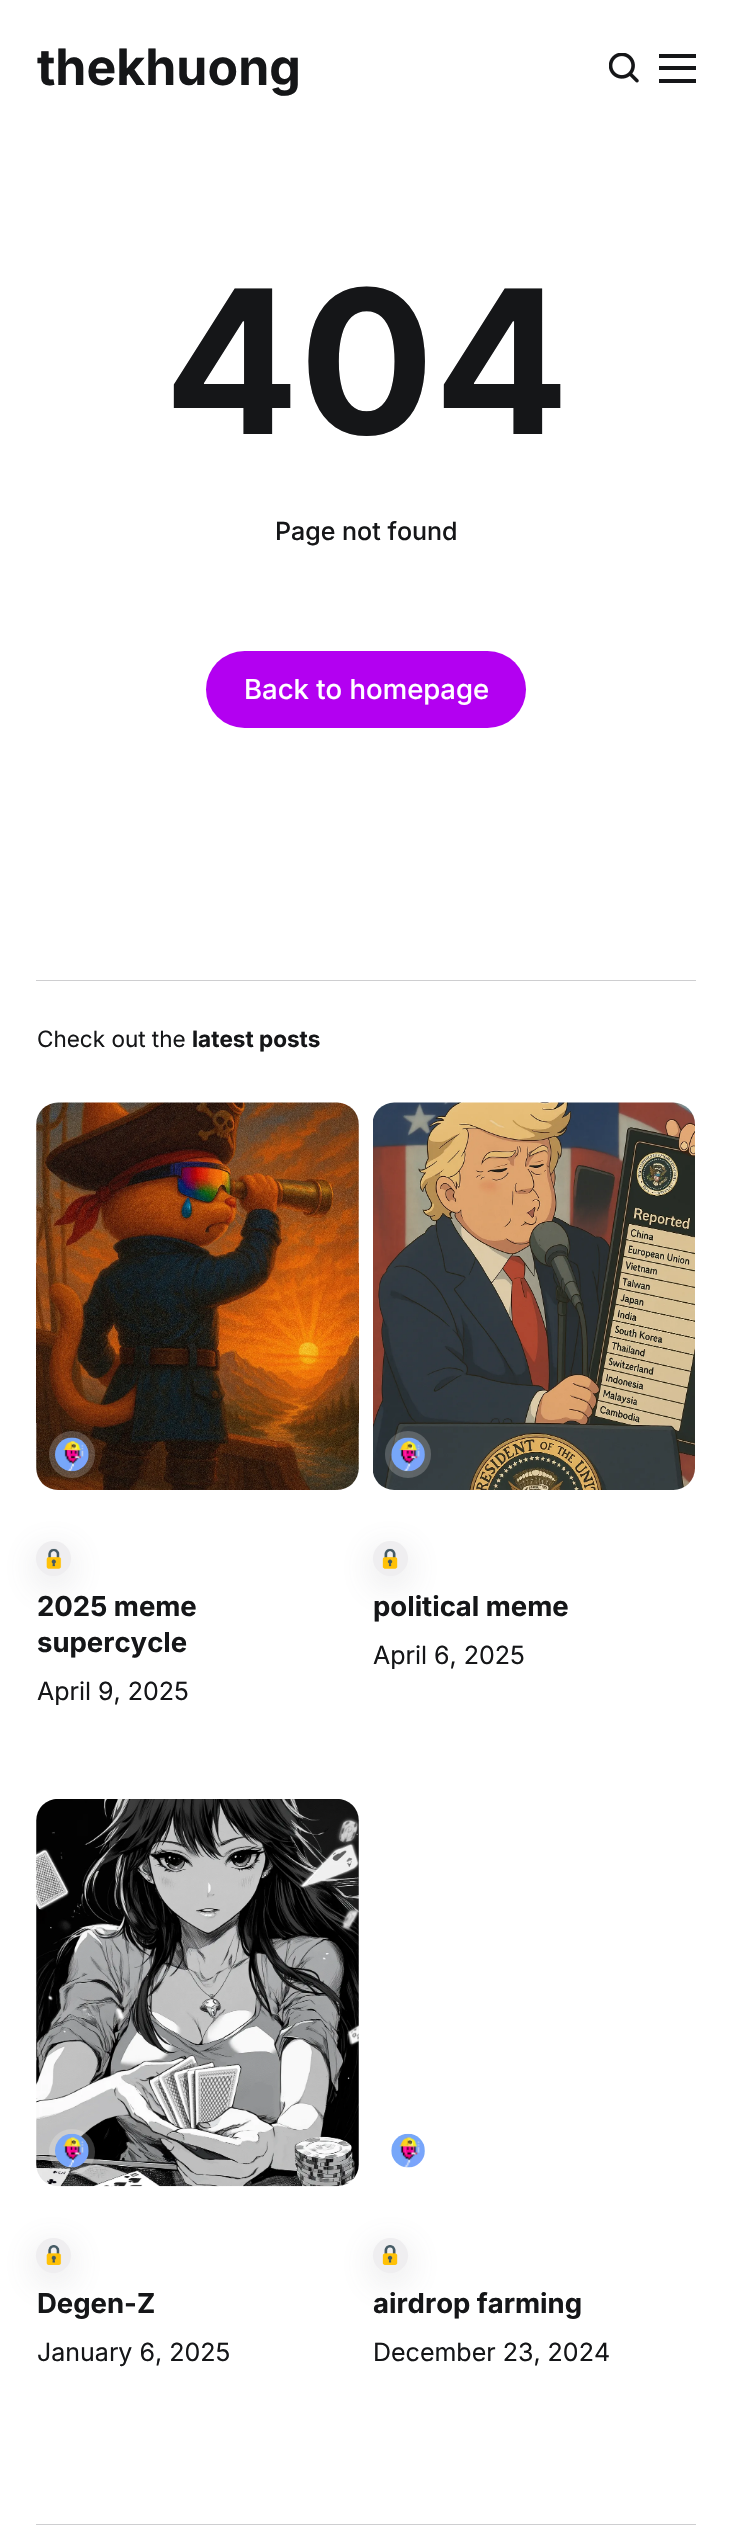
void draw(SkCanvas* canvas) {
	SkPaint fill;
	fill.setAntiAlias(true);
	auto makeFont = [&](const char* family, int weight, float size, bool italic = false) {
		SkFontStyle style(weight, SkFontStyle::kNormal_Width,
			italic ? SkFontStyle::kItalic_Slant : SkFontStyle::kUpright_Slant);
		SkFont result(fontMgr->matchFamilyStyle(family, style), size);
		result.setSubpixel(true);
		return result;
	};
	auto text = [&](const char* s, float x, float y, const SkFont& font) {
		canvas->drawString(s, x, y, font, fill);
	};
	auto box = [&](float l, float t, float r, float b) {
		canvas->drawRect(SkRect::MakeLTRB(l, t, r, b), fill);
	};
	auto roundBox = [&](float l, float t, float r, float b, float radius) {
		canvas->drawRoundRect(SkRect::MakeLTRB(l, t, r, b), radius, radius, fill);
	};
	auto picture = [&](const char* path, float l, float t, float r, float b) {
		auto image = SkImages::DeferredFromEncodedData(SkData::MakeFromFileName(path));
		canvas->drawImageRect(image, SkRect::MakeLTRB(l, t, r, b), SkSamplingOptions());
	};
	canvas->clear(0xFFFFFFFF);
	picture("image0.png", 609, 53, 639, 83);
	fill.setColor(0xFF151618);
	box(659, 54, 696, 58);
	box(659, 66, 696, 70);
	box(659, 79, 696, 83);
	fill.setColor(0xFFB300F1);
	roundBox(206, 651, 526, 728, 38.5f);
	fill.setColor(0xFFCECED0);
	box(36, 980, 696, 981);
	picture("image1.png", 36, 1102, 359, 1490);
	fill.setColor(0x33FFFFFF);
	roundBox(49, 1431, 95, 1478, 23);
	picture("image2.png", 55, 1437, 89, 1472);
	fill.setColor(0x3364646F);
	fill.setMaskFilter(SkMaskFilter::MakeBlur(kNormal_SkBlurStyle, 18));
	canvas->drawRoundRect(SkRect::MakeLTRB(36, 1550, 71, 1585), 17.5f, 17.5f, fill);
	fill.setMaskFilter(nullptr);
	fill.setColor(0xFFEFEEF0);
	canvas->drawCircle(53.5f, 1558.5f, 17.5f, fill);
	picture("image3.png", 46, 1548, 62, 1569);
	picture("image4.png", 373, 1102, 695, 1490);
	fill.setColor(0x33FFFFFF);
	roundBox(385, 1431, 431, 1478, 23);
	picture("image5.png", 391, 1437, 425, 1472);
	fill.setColor(0x3364646F);
	fill.setMaskFilter(SkMaskFilter::MakeBlur(kNormal_SkBlurStyle, 18));
	canvas->drawRoundRect(SkRect::MakeLTRB(373, 1550, 408, 1585), 17.5f, 17.5f, fill);
	fill.setMaskFilter(nullptr);
	fill.setColor(0xFFEFEEF0);
	canvas->drawCircle(390.5f, 1558.5f, 17.5f, fill);
	picture("image6.png", 382, 1548, 398, 1569);
	picture("image7.png", 36, 1799, 359, 2187);
	fill.setColor(0x33FFFFFF);
	canvas->drawCircle(72, 2152, 23, fill);
	picture("image8.png", 55, 2133, 89, 2168);
	fill.setColor(0x3364646F);
	fill.setMaskFilter(SkMaskFilter::MakeBlur(kNormal_SkBlurStyle, 18));
	canvas->drawRoundRect(SkRect::MakeLTRB(36, 2246, 71, 2281), 17.5f, 17.5f, fill);
	fill.setMaskFilter(nullptr);
	fill.setColor(0xFFEFEEF0);
	canvas->drawCircle(53.5f, 2255.5f, 17.5f, fill);
	picture("image9.png", 46, 2245, 62, 2265);
	picture("image10.png", 391, 2133, 425, 2168);
	fill.setColor(0x3364646F);
	fill.setMaskFilter(SkMaskFilter::MakeBlur(kNormal_SkBlurStyle, 18));
	canvas->drawRoundRect(SkRect::MakeLTRB(373, 2246, 408, 2281), 17.5f, 17.5f, fill);
	fill.setMaskFilter(nullptr);
	fill.setColor(0xFFEFEEF0);
	canvas->drawCircle(390.5f, 2255.5f, 17.5f, fill);
	picture("image11.png", 382, 2245, 398, 2265);
	fill.setColor(0xFFCECED0);
	box(36, 2524, 696, 2525);
	auto font1 = makeFont("Inter", 700, 50);
	fill.setColor(0xFF151618);
	text("thekhuong", 37, 85, font1);
	auto font2 = makeFont("Inter", 700, 200);
	text("404", 164, 434, font2);
	auto font3 = makeFont("Inter", 500, 25);
	text("Page not found", 275, 540, font3);
	auto font4 = makeFont("Inter", 500, 27.5f);
	fill.setColor(0xFFFFFFFF);
	text("Back to homepage", 244, 699, font4);
	auto font5 = makeFont("Inter", 400, 22.5f);
	fill.setColor(0xFF151618);
	text("Check out the", 37, 1047, font5);
	auto font6 = makeFont("Inter", 700, 22.5f);
	text("latest posts", 192, 1047, font6);
	auto font7 = makeFont("Inter", 700, 27.5f);
	text("2025 meme", 37, 1616, font7);
	text("supercycle", 37, 1652, font7);
	auto font8 = makeFont("Inter", 400, 25);
	text("April 9, 2025", 37, 1700, font8);
	text("political meme", 373, 1616, font7);
	text("April 6, 2025", 373, 1664, font8);
	text("Degen-Z", 37, 2313, font7);
	text("January 6, 2025", 37, 2361, font8);
	text("airdrop farming", 373, 2313, font7);
	text("December 23, 2024", 373, 2361, font8);
}
